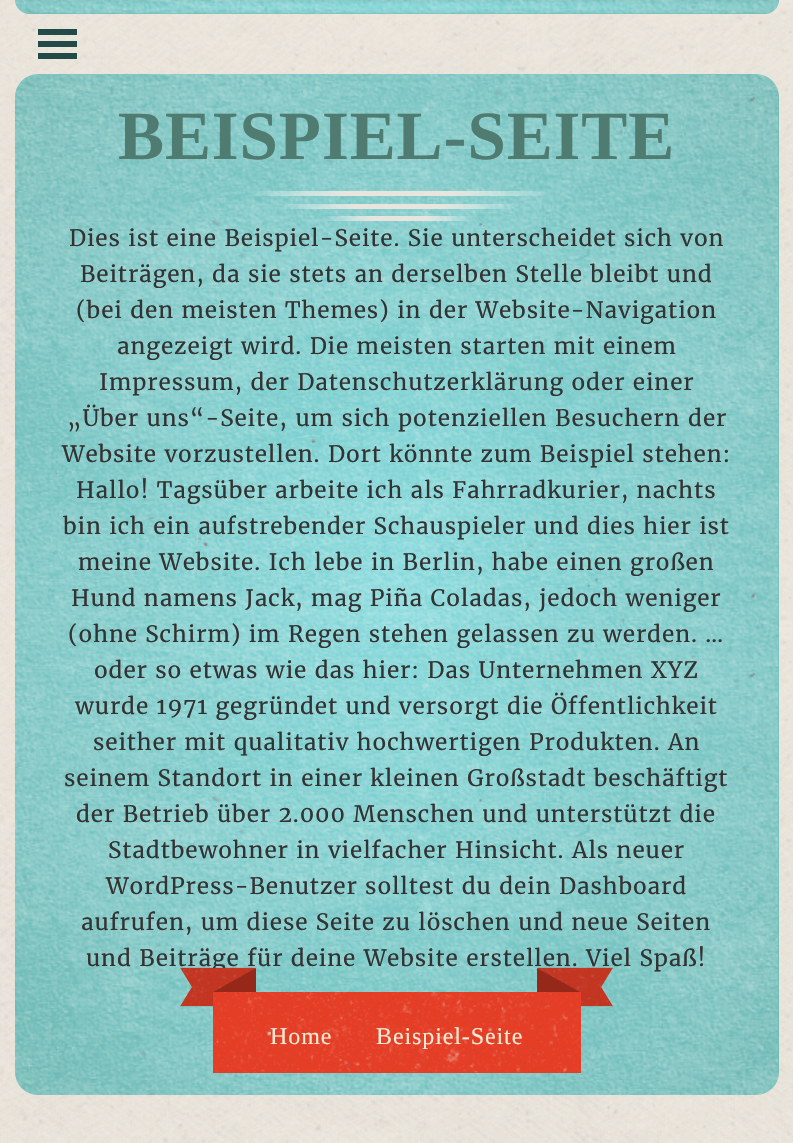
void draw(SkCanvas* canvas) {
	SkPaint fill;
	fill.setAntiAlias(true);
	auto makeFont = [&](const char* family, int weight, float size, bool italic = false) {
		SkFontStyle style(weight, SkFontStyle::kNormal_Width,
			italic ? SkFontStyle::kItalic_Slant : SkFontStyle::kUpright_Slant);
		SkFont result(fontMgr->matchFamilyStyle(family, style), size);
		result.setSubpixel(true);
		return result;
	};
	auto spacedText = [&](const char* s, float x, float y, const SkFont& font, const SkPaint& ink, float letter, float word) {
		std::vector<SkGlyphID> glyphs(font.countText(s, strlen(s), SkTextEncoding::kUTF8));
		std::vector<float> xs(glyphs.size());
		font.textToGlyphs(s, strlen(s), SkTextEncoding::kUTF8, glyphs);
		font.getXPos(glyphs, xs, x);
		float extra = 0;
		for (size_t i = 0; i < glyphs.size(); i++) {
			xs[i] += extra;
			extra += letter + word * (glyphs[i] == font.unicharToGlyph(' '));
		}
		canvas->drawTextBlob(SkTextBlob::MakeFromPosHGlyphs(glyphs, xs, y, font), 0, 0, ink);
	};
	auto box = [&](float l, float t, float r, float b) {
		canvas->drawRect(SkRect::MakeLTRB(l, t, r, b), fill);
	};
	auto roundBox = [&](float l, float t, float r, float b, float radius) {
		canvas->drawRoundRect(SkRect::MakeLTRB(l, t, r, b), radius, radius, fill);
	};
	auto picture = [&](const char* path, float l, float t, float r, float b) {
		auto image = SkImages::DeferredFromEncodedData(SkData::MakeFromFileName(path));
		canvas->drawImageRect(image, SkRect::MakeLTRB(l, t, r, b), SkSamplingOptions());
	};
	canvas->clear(0xFFF7F2E8);
	picture("image0.png", 0, 0, 793, 1143);
	{
		const SkColor colors[] = {0xFF81D8DB, 0xFF6EB8B3};
		const float stops[] = {0, 1};
		SkMatrix m = SkMatrix::Translate(397, 6.8f).preScale(540, 10);
		fill.setShader(SkGradientShader::MakeRadial({0, 0}, 1, colors, stops, 2, SkTileMode::kClamp, 0, &m));
		fill.setAlpha(255);
	}
	canvas->drawPath(SkPathBuilder().moveTo(15, 0).lineTo(779, 0).cubicTo(779, 7.5f, 772.5f, 14, 765, 14).lineTo(29, 14).cubicTo(21.5f, 14, 15, 7.5f, 15, 0).close().detach(), fill);
	picture("image1.png", 15, 0, 779, 14);
	fill.setShader(nullptr);
	fill.setColor(0xFF224A49);
	box(38, 29, 77, 35);
	box(38, 41, 77, 47);
	box(38, 53, 77, 59);
	{
		const SkColor colors[] = {0xFF81D8DB, 0xFF6EB8B3};
		const float stops[] = {0, 1};
		SkMatrix m = SkMatrix::Translate(397, 584).preScale(540, 722);
		fill.setShader(SkGradientShader::MakeRadial({0, 0}, 1, colors, stops, 2, SkTileMode::kClamp, 0, &m));
		fill.setAlpha(255);
	}
	roundBox(15, 74, 779, 1095, 23);
	picture("image2.png", 15, 74, 779, 1095);
	{
		const SkColor colors[] = {0x03FFFFFF, 0xFFE9E4DD, 0xFFE9E4DD, 0x03FFFFFF};
		const float stops[] = {0, 0.33f, 0.67f, 1};
		const SkPoint ends[] = {{548, 193}, {248, 193}};
		fill.setShader(SkGradientShader::MakeLinear(ends, colors, stops, 4, SkTileMode::kClamp));
		fill.setAlpha(255);
	}
	box(248, 191, 548, 196);
	{
		const SkColor colors[] = {0x03FFFFFF, 0xFFE9E4DD, 0xFFE9E4DD, 0x03FFFFFF};
		const float stops[] = {0, 0.33f, 0.67f, 1};
		const SkPoint ends[] = {{518, 206}, {278, 206}};
		fill.setShader(SkGradientShader::MakeLinear(ends, colors, stops, 4, SkTileMode::kClamp));
		fill.setAlpha(255);
	}
	box(278, 204, 518, 209);
	{
		const SkColor colors[] = {0x03FFFFFF, 0xFFE9E4DD, 0xFFE9E4DD, 0x03FFFFFF};
		const float stops[] = {0, 0.33f, 0.67f, 1};
		const SkPoint ends[] = {{473, 218}, {323, 218}};
		fill.setShader(SkGradientShader::MakeLinear(ends, colors, stops, 4, SkTileMode::kClamp));
		fill.setAlpha(255);
	}
	box(323, 216, 473, 221);
	auto font1 = makeFont("Liberation Serif", 700, 69);
	fill.setShader(nullptr);
	fill.setColor(0xFF4F7B70);
	spacedText("BEISPIEL-SEITE", 118, 159, font1, fill, 0.9f, 0);
	auto font2 = makeFont("Merriweather", 400, 22.5f);
	fill.setColor(0xFF333333);
	spacedText("Dies ist eine Beispiel-Seite. Sie unterscheidet sich von", 69, 246, font2, fill, 0.9f, 1.25f);
	spacedText("Beiträgen, da sie stets an derselben Stelle bleibt und", 80, 282, font2, fill, 0.9f, 1.25f);
	spacedText("(bei den meisten Themes) in der Website-Navigation", 76, 318, font2, fill, 0.9f, 1.25f);
	spacedText("angezeigt wird. Die meisten starten mit einem", 117, 354, font2, fill, 0.9f, 1.25f);
	spacedText("Impressum, der Datenschutzerklärung oder einer", 99, 390, font2, fill, 0.9f, 1.25f);
	spacedText("„Über uns“-Seite, um sich potenziellen Besuchern der", 67, 426, font2, fill, 0.9f, 1.5f);
	spacedText("Website vorzustellen. Dort könnte zum Beispiel stehen:", 62, 462, font2, fill, 0.9f, 1.25f);
	spacedText("Hallo! Tagsüber arbeite ich als Fahrradkurier, nachts", 76, 498, font2, fill, 0.9f, 1.25f);
	spacedText("bin ich ein aufstrebender Schauspieler und dies hier ist", 63, 534, font2, fill, 0.9f, 1.25f);
	spacedText("meine Website. Ich lebe in Berlin, habe einen großen", 78, 570, font2, fill, 0.9f, 1.25f);
	spacedText("Hund namens Jack, mag Piña Coladas, jedoch weniger", 71, 606, font2, fill, 0.9f, 1.25f);
	spacedText("(ohne Schirm) im Regen stehen gelassen zu werden. …", 68, 642, font2, fill, 0.9f, 1.25f);
	spacedText("oder so etwas wie das hier: Das Unternehmen XYZ", 94, 678, font2, fill, 0.9f, 1.25f);
	spacedText("wurde 1971 gegründet und versorgt die Öffentlichkeit", 75, 714, font2, fill, 0.9f, 1.25f);
	spacedText("seither mit qualitativ hochwertigen Produkten. An", 93, 750, font2, fill, 0.9f, 1.25f);
	spacedText("seinem Standort in einer kleinen Großstadt beschäftigt", 64, 786, font2, fill, 0.9f, 1.25f);
	spacedText("der Betrieb über 2.000 Menschen und unterstützt die", 76, 822, font2, fill, 0.9f, 1.25f);
	spacedText("Stadtbewohner in vielfacher Hinsicht. Als neuer", 108, 858, font2, fill, 0.9f, 1.25f);
	spacedText("WordPress-Benutzer solltest du dein Dashboard", 106, 894, font2, fill, 0.9f, 1.25f);
	spacedText("aufrufen, um diese Seite zu löschen und neue Seiten", 81, 930, font2, fill, 0.9f, 1.25f);
	spacedText("und Beiträge für deine Website erstellen. Viel Spaß!", 86, 966, font2, fill, 0.9f, 1.25f);
	picture("image3.png", 180, 967, 256, 1007);
	picture("image4.png", 538, 967, 613, 1007);
	fill.setColor(0xFFE53E26);
	box(213, 992, 581, 1073);
	picture("image5.png", 213, 991, 581, 1073);
	fill.setColor(0xFF952819);
	canvas->drawPath(SkPathBuilder().moveTo(256, 992).lineTo(213, 992).lineTo(256, 968).close().detach(), fill);
	canvas->drawPath(SkPathBuilder().moveTo(580, 992).lineTo(537, 992).lineTo(537, 968).close().detach(), fill);
	auto font3 = makeFont("Liberation Serif", 400, 24);
	fill.setColor(0xFFF7EBD5);
	spacedText("Home", 270, 1044, font3, fill, 0.9f, 0);
	spacedText("Beispiel-Seite", 376, 1044, font3, fill, 0.9f, 0);
}
